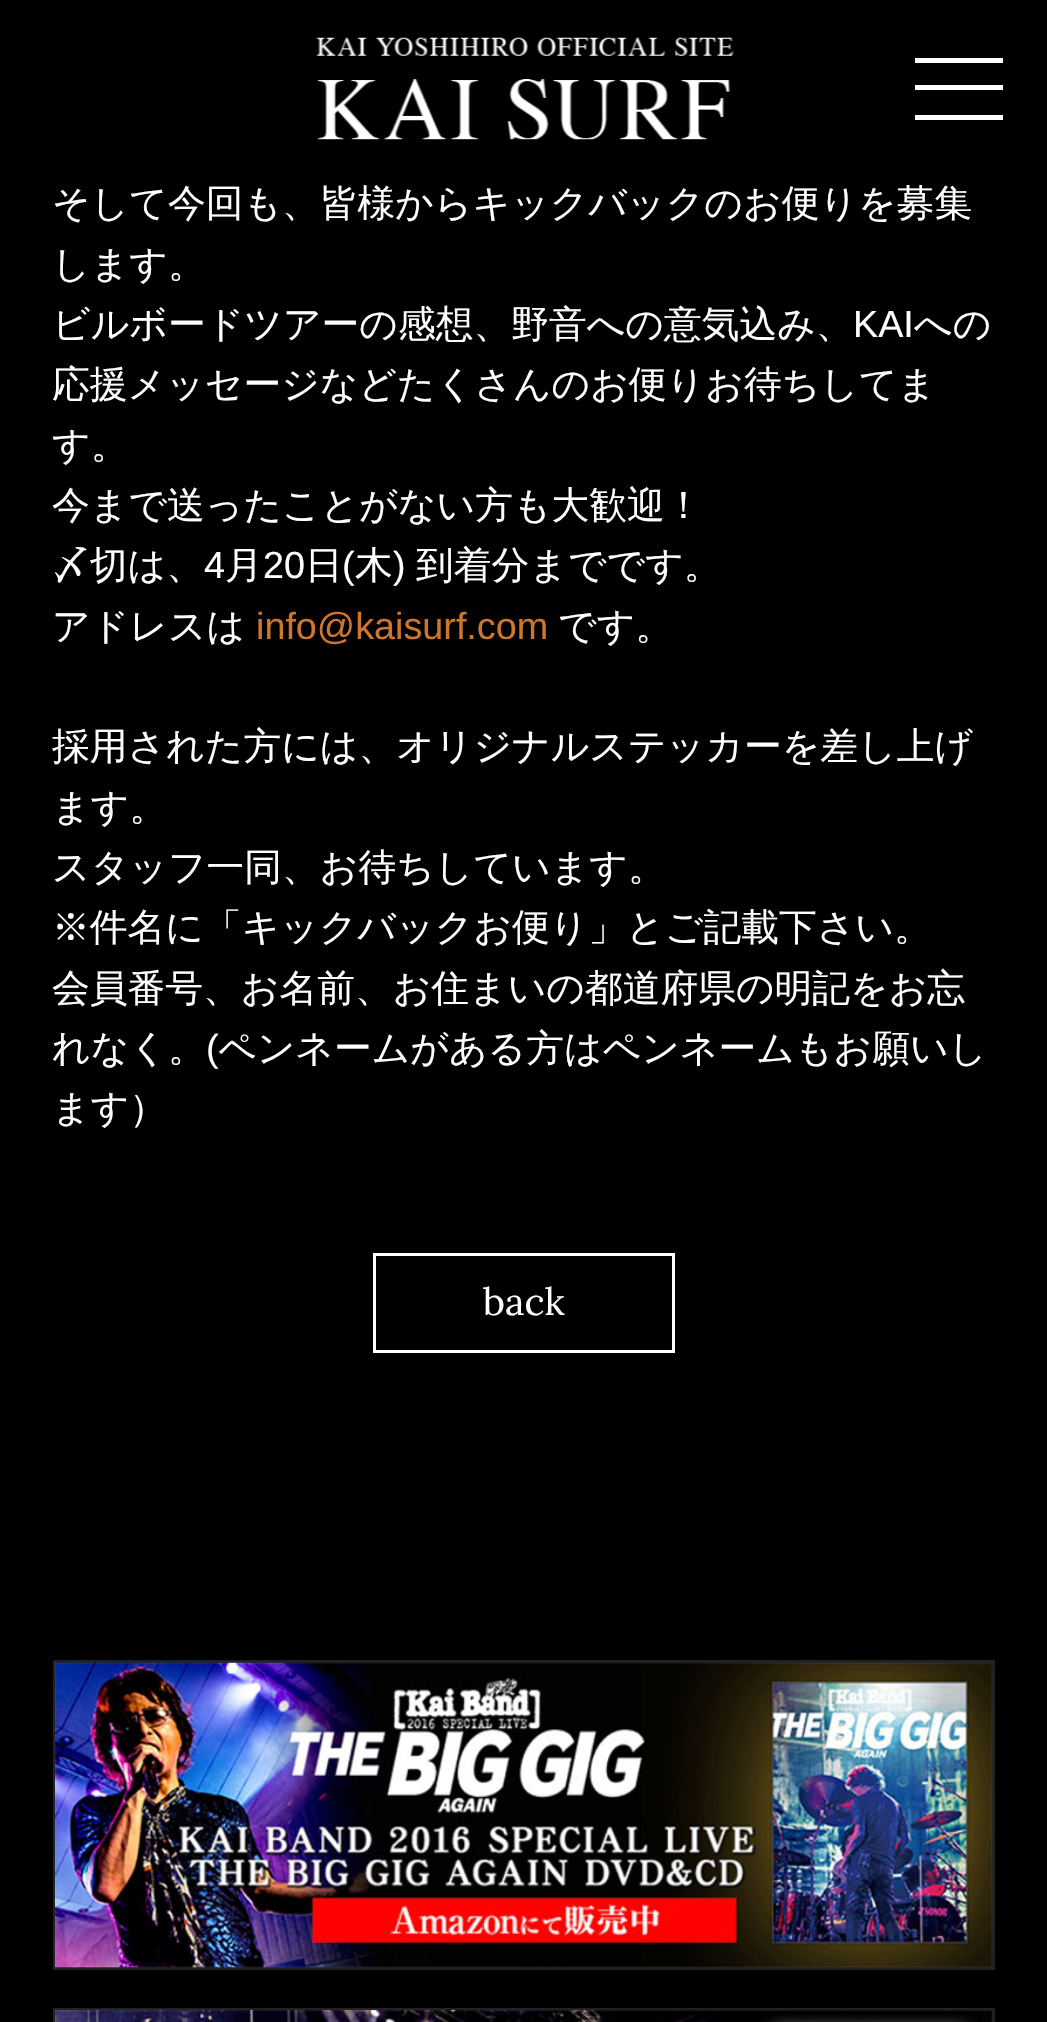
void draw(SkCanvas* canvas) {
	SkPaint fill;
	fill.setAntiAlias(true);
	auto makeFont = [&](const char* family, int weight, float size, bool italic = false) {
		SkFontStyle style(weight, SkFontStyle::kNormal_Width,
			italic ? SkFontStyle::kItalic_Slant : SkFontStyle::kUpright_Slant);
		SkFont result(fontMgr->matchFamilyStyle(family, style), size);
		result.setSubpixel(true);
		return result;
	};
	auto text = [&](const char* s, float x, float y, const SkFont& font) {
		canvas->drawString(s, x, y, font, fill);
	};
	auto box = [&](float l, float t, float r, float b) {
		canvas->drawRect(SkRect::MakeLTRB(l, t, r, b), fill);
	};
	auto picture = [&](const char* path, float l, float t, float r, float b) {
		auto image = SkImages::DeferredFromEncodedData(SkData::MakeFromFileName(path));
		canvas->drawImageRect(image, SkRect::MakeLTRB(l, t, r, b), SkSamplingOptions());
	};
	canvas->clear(0xFF000000);
	picture("image0.png", 316, 37, 734, 140);
	fill.setColor(0xFFFFFFFF);
	box(915, 58, 1003, 63);
	box(915, 85, 1003, 90);
	box(915, 115, 1003, 120);
	fill.setStyle(SkPaint::kStroke_Style);
	fill.setStrokeWidth(3);
	canvas->drawRect(SkRect::MakeLTRB(374.5f, 1254.5f, 673.5f, 1351.5f), fill);
	fill.setColor(0xFF222222);
	canvas->drawRect(SkRect::MakeLTRB(54.5f, 1661.5f, 993.5f, 1968.5f), fill);
	picture("image1.png", 55, 1662, 993, 1968);
	canvas->drawRect(SkRect::MakeLTRB(54.5f, 2009.5f, 993.5f, 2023.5f), fill);
	picture("image2.png", 55, 2010, 993, 2022);
	auto font1 = makeFont("WenQuanYi Zen Hei", 500, 37.75f);
	fill.setStyle(SkPaint::kFill_Style);
	fill.setColor(0xFFFFFFFF);
	text("そして今回も、皆様からキックバックのお便りを募集", 52, 216, font1);
	text("します。", 52, 277, font1);
	text("ビルボードツアーの感想、野音への意気込み、", 52, 337, font1);
	auto font2 = makeFont("Liberation Sans", 400, 37.75f);
	text("KAI", 853, 337, font2);
	text("への", 914, 337, font1);
	text("応援メッセージなどたくさんのお便りお待ちしてま", 52, 397, font1);
	text("す。", 52, 458, font1);
	text("今まで送ったことがない方も大歓迎！", 52, 518, font1);
	text("〆切は、", 52, 578, font1);
	text("4", 204, 578, font2);
	text("月", 225, 578, font1);
	text("20", 263, 578, font2);
	text("日", 305, 578, font1);
	text("(", 342, 578, font2);
	text("木", 355, 578, font1);
	text(")", 393, 578, font2);
	text("到着分までです。", 416, 578, font1);
	text("アドレスは", 52, 639, font1);
	fill.setColor(0xFFCE762C);
	text("info@kaisurf.com", 256, 639, font2);
	fill.setColor(0xFFFFFFFF);
	text("です。", 558, 639, font1);
	text("採用された方には、オリジナルステッカーを差し上げ", 52, 759, font1);
	text("ます。", 52, 820, font1);
	text("スタッフ一同、お待ちしています。", 52, 880, font1);
	text("※件名に「キックバックお便り」とご記載下さい。", 52, 940, font1);
	text("会員番号、お名前、お住まいの都道府県の明記をお忘", 52, 1001, font1);
	text("れなく。", 52, 1061, font1);
	text("(", 206, 1061, font2);
	text("ペンネームがある方はペンネームもお願いし", 218, 1061, font1);
	text("ます）", 52, 1121, font1);
	auto font3 = makeFont("Lora", 400, 37.75f);
	text("back", 483, 1315, font3);
}
